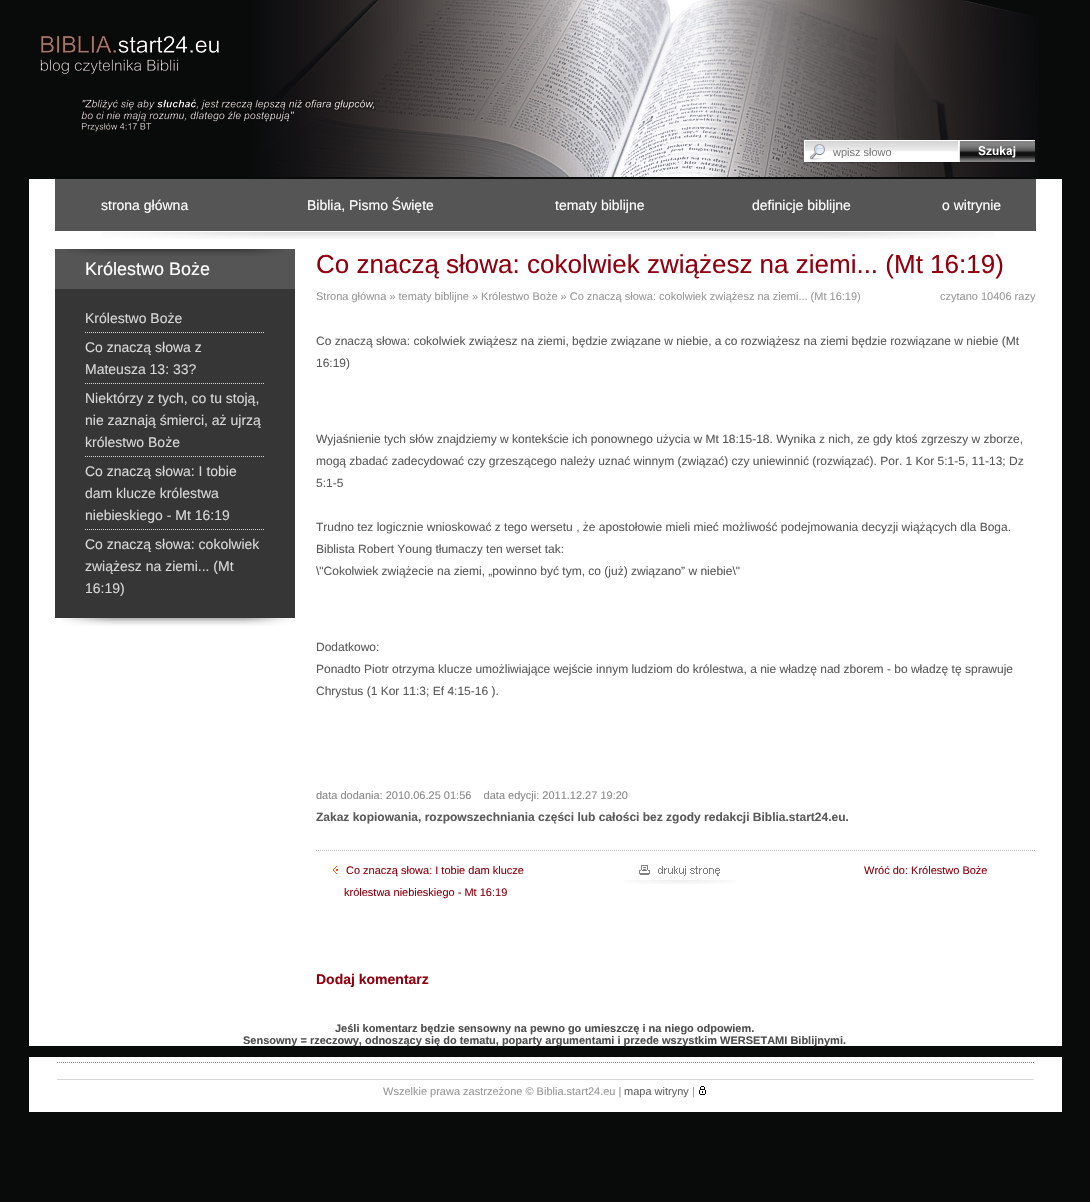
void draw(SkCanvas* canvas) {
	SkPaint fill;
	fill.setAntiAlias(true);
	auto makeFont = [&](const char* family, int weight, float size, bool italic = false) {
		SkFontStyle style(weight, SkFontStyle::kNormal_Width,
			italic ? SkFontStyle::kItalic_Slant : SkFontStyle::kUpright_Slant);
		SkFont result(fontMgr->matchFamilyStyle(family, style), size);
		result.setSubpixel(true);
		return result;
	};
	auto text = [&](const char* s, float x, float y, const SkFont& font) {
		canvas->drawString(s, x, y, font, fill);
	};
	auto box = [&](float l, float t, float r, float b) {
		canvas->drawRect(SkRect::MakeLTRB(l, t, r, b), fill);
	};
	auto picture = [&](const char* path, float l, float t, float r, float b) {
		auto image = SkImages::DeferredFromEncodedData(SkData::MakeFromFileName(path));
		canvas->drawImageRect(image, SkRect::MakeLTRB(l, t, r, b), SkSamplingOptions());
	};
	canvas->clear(0xFF090B0A);
	picture("image0.png", 40, 0, 1039, 177);
	picture("image1.png", 803, 140, 958, 164);
	picture("image2.png", 958, 140, 1035, 163);
	fill.setColor(0xFFFFFFFF);
	box(29, 179, 1062, 1046);
	fill.setColor(0xFF555555);
	box(55, 179, 1036, 231);
	picture("image3.png", 101, 232, 995, 239);
	box(55, 249, 295, 289);
	picture("image4.png", 67, 249, 285, 256);
	fill.setColor(0xFF363636);
	box(55, 289, 295, 618);
	fill.setStyle(SkPaint::kStroke_Style);
	fill.setStrokeWidth(1);
	fill.setColor(0xFFD7D7D7);
	fill.setPathEffect(SkDashPathEffect::Make({{1, 1}}, 0));
	canvas->drawPath(SkPathBuilder().moveTo(85, 332.5f).lineTo(265, 332.5f).detach(), fill);
	fill.setPathEffect(nullptr);
	fill.setPathEffect(SkDashPathEffect::Make({{1, 1}}, 0));
	canvas->drawPath(SkPathBuilder().moveTo(85, 383.5f).lineTo(265, 383.5f).detach(), fill);
	fill.setPathEffect(nullptr);
	fill.setPathEffect(SkDashPathEffect::Make({{1, 1}}, 0));
	canvas->drawPath(SkPathBuilder().moveTo(85, 456.5f).lineTo(265, 456.5f).detach(), fill);
	fill.setPathEffect(nullptr);
	fill.setPathEffect(SkDashPathEffect::Make({{1, 1}}, 0));
	canvas->drawPath(SkPathBuilder().moveTo(85, 529.5f).lineTo(265, 529.5f).detach(), fill);
	fill.setPathEffect(nullptr);
	picture("image5.png", 61, 618, 290, 626);
	fill.setColor(0xFFBBBBBB);
	fill.setPathEffect(SkDashPathEffect::Make({{1, 1}}, 0));
	canvas->drawPath(SkPathBuilder().moveTo(316, 850.5f).lineTo(1036, 850.5f).detach(), fill);
	fill.setPathEffect(nullptr);
	picture("image6.png", 333, 866, 338, 874);
	picture("image7.png", 624, 865, 736, 884);
	fill.setStyle(SkPaint::kFill_Style);
	fill.setColor(0xFFFFFFFF);
	box(29, 1057, 1062, 1112);
	fill.setStyle(SkPaint::kStroke_Style);
	fill.setColor(0xFF888888);
	fill.setPathEffect(SkDashPathEffect::Make({{1, 1}}, 0));
	canvas->drawPath(SkPathBuilder().moveTo(57, 1062.5f).lineTo(1034, 1062.5f).detach(), fill);
	fill.setPathEffect(nullptr);
	fill.setStyle(SkPaint::kFill_Style);
	fill.setColor(0xFFD8D8D8);
	box(57, 1079, 1034, 1080);
	picture("image8.png", 699, 1086, 706, 1095);
	canvas->save();
	canvas->clipRect(SkRect::MakeLTRB(833, 146, 953, 158));
	auto font1 = makeFont("Liberation Sans", 400, 11);
	fill.setColor(0xFF7D7D7D);
	text("wpisz słowo", 833, 156, font1);
	canvas->restore();
	auto font2 = makeFont("Liberation Sans", 400, 14);
	fill.setColor(0xFFFFFFFF);
	text("strona główna", 101, 210, font2);
	text("Biblia, Pismo Święte", 307, 210, font2);
	text("tematy biblijne", 555, 210, font2);
	text("definicje biblijne", 752, 210, font2);
	text("o witrynie", 942, 210, font2);
	auto font3 = makeFont("Liberation Sans", 400, 18);
	text("Królestwo Boże", 85, 275, font3);
	fill.setColor(0xFFD7D7D7);
	text("Królestwo Boże", 85, 323, font2);
	text("Co znaczą słowa z", 85, 352, font2);
	text("Mateusza 13: 33?", 85, 374, font2);
	text("Niektórzy z tych, co tu stoją,", 85, 403, font2);
	text("nie zaznają śmierci, aż ujrzą", 85, 425, font2);
	text("królestwo Boże", 85, 447, font2);
	text("Co znaczą słowa: I tobie", 85, 476, font2);
	text("dam klucze królestwa", 85, 498, font2);
	text("niebieskiego - Mt 16:19", 85, 520, font2);
	text("Co znaczą słowa: cokolwiek", 85, 549, font2);
	text("zwiążesz na ziemi... (Mt", 85, 571, font2);
	text("16:19)", 85, 593, font2);
	auto font4 = makeFont("Liberation Sans", 400, 26);
	fill.setColor(0xFF91000F);
	text("Co znaczą słowa: cokolwiek zwiążesz na ziemi... (Mt 16:19)", 316, 273, font4);
	fill.setColor(0xFF999999);
	text("Strona główna » tematy biblijne » Królestwo Boże » Co znaczą słowa: cokolwiek zwiążesz na ziemi... (Mt 16:19)", 316, 300, font1);
	text("czytano 10406 razy", 940, 300, font1);
	auto font5 = makeFont("Liberation Sans", 400, 12);
	fill.setColor(0xFF5A5A5A);
	text("Co znaczą słowa: cokolwiek zwiążesz na ziemi, będzie związane w niebie, a co rozwiążesz na ziemi będzie rozwiązane w niebie (Mt", 316, 345, font5);
	text("16:19)", 316, 367, font5);
	text("Wyjaśnienie tych słów znajdziemy w kontekście ich ponownego użycia w Mt 18:15-18. Wynika z nich, ze gdy ktoś zgrzeszy w zborze,", 316, 443, font5);
	text("mogą zbadać zadecydować czy grzeszącego należy uznać winnym (związać) czy uniewinnić (rozwiązać). Por. 1 Kor 5:1-5, 11-13; Dz", 316, 465, font5);
	text("5:1-5", 316, 487, font5);
	text("Trudno tez logicznie wnioskować z tego wersetu , że apostołowie mieli mieć możliwość podejmowania decyzji wiążących dla Boga.", 316, 531, font5);
	text("Biblista Robert Young tłumaczy ten werset tak:", 316, 553, font5);
	text("\\\"Cokolwiek zwiążecie na ziemi, „powinno być tym, co (już) związano” w niebie\\\"", 316, 575, font5);
	text("Dodatkowo:", 316, 651, font5);
	text("Ponadto Piotr otrzyma klucze umożliwiające wejście innym ludziom do królestwa, a nie władzę nad zborem - bo władzę tę sprawuje", 316, 673, font5);
	text("Chrystus (1 Kor 11:3; Ef 4:15-16 ).", 316, 695, font5);
	fill.setColor(0xFF888888);
	text("data dodania: 2010.06.25 01:56    data edycji: 2011.12.27 19:20", 316, 799, font1);
	auto font6 = makeFont("Liberation Sans", 700, 12);
	fill.setColor(0xFF5A5A5A);
	text("Zakaz kopiowania, rozpowszechniania części lub całości bez zgody redakcji Biblia.start24.eu.", 316, 821, font6);
	fill.setColor(0xFF91000F);
	text("Co znaczą słowa: I tobie dam klucze", 346, 874, font1);
	text("królestwa niebieskiego - Mt 16:19", 344, 896, font1);
	text("Wróć do: Królestwo Boże", 864, 874, font1);
	auto font7 = makeFont("Liberation Sans", 700, 14);
	text("Dodaj komentarz", 316, 984, font7);
	auto font8 = makeFont("Liberation Sans", 700, 11);
	fill.setColor(0xFF4E4E4E);
	text("Jeśli komentarz będzie sensowny na pewno go umieszczę i na niego odpowiem.", 335, 1032, font8);
	text("Sensowny = rzeczowy, odnoszący się do tematu, poparty argumentami i przede wszystkim WERSETAMI Biblijnymi.", 243, 1044, font8);
	fill.setColor(0xFF999999);
	text("Wszelkie prawa zastrzeżone © Biblia.start24.eu |", 383, 1095, font1);
	fill.setColor(0xFF666666);
	text("mapa witryny", 624, 1095, font1);
	fill.setColor(0xFF999999);
	text("|", 692, 1095, font1);
}
